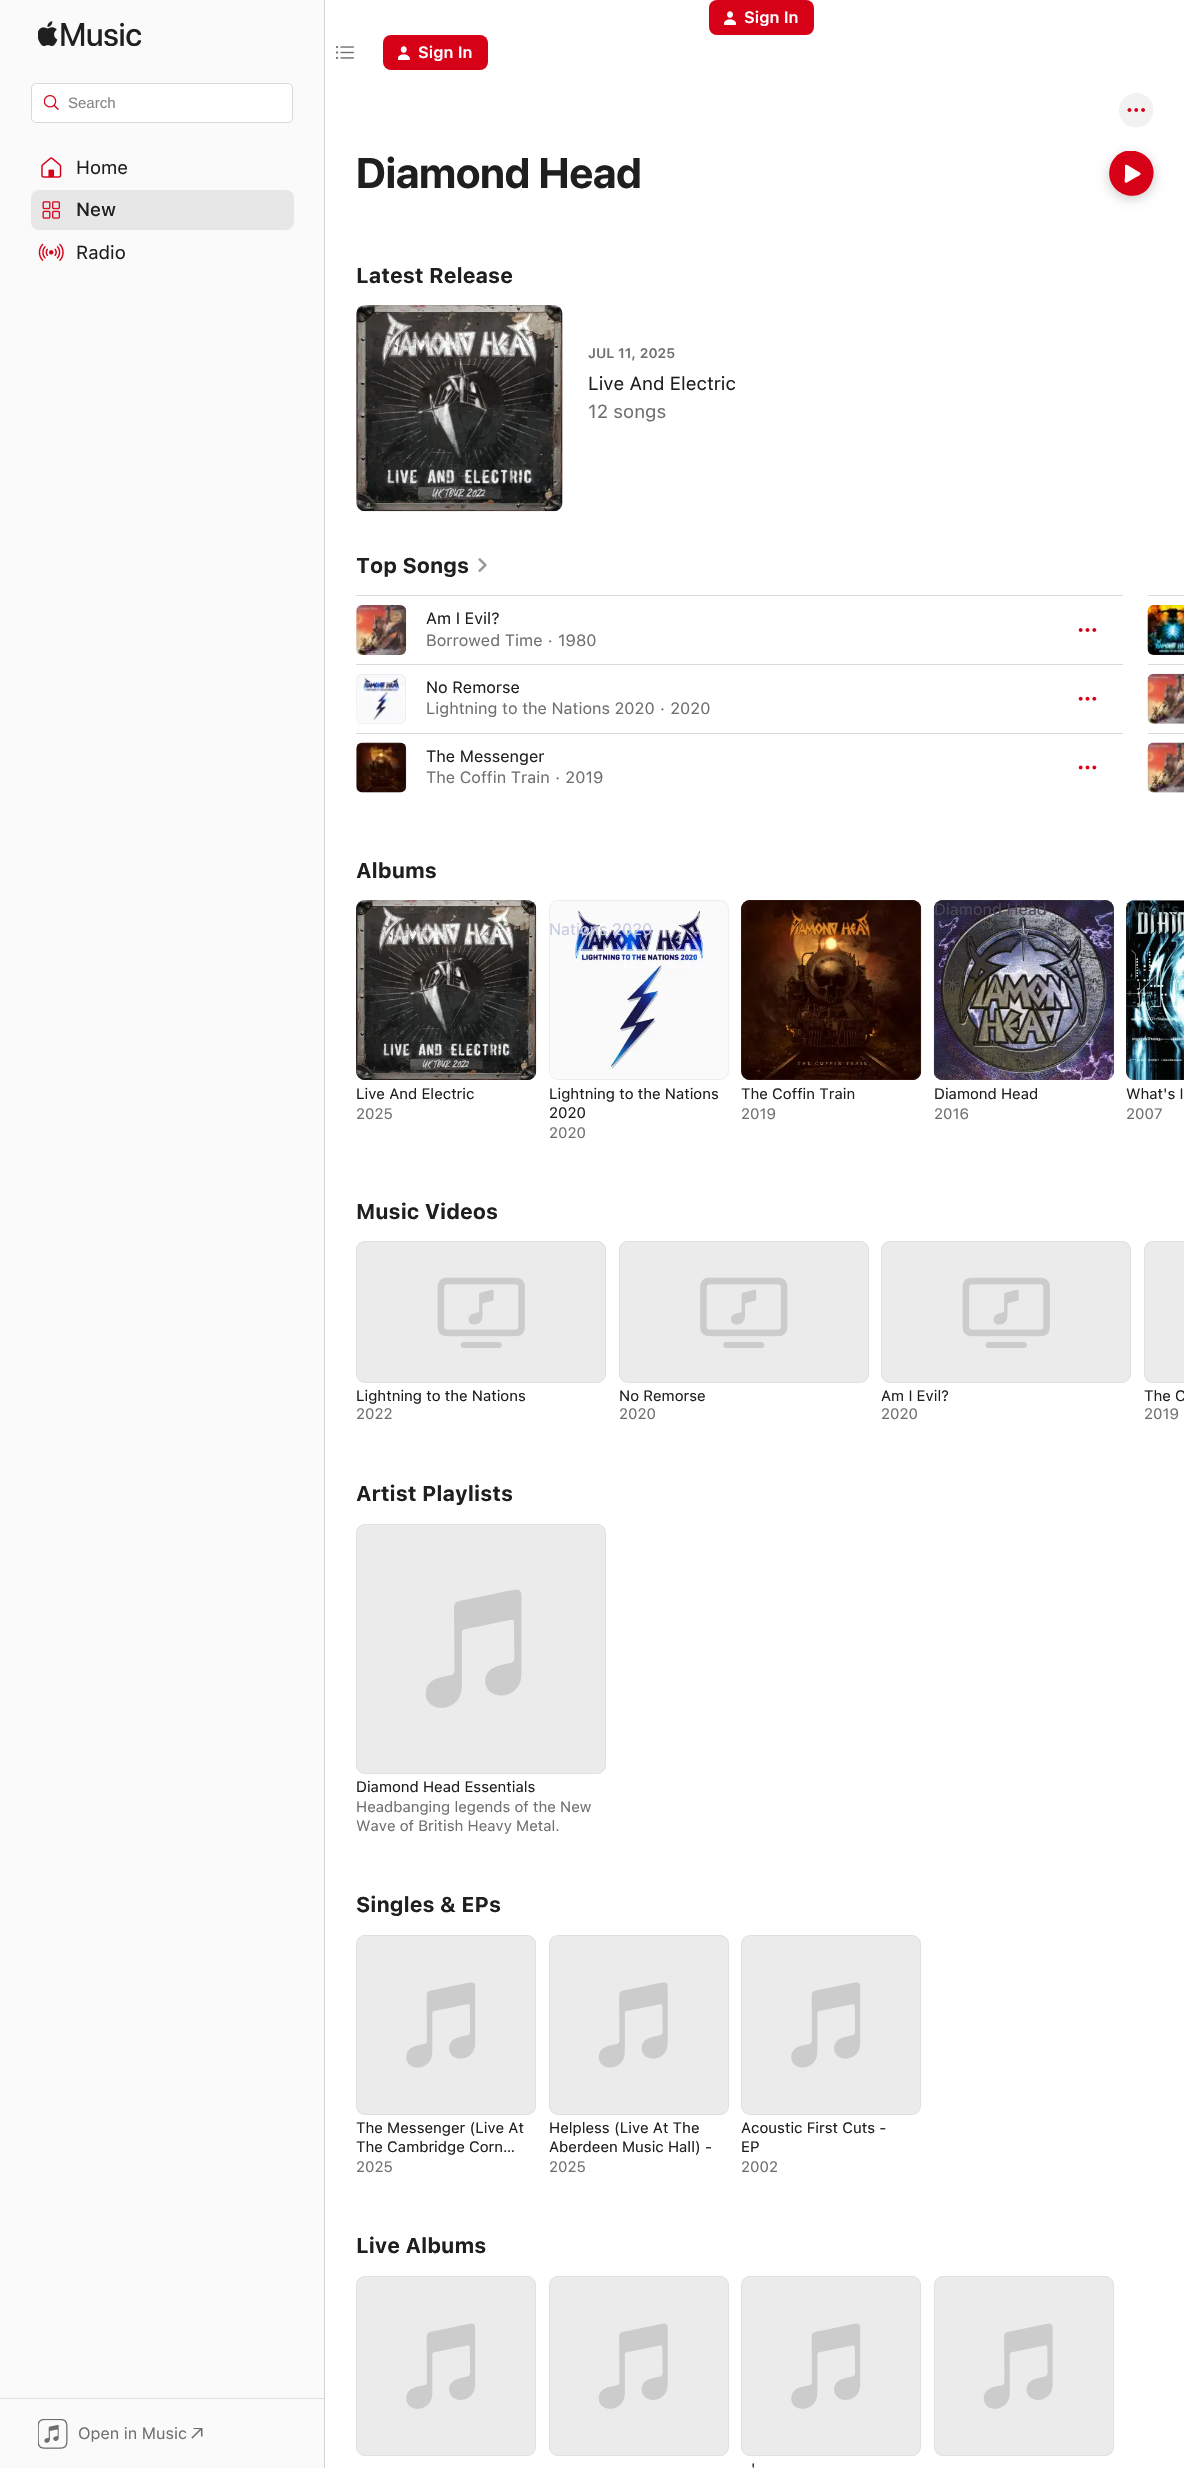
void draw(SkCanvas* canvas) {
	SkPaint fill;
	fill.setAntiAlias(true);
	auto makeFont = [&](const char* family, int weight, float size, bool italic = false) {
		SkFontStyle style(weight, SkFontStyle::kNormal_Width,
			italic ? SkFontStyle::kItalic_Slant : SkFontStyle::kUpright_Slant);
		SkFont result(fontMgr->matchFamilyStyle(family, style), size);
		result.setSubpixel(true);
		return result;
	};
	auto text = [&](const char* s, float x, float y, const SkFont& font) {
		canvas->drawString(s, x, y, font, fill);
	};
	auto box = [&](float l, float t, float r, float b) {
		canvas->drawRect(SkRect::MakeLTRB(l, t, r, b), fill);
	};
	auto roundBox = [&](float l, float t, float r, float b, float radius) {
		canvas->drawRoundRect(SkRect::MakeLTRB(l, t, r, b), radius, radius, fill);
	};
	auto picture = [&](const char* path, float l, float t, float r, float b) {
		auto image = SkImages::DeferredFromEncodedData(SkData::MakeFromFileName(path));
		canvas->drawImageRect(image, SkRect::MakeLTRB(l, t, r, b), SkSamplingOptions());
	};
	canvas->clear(0xFFFFFFFF);
	fill.setColor(0xFFD60017);
	roundBox(709, 0, 814, 35, 8);
	picture("image0.png", 724, 11, 736, 25);
	picture("image1.png", 335, 46, 355, 59);
	roundBox(383, 35, 488, 70, 8);
	picture("image2.png", 398, 46, 410, 60);
	fill.setColor(0xFFFAFAFA);
	box(0, 0, 324, 2468);
	fill.setColor(0xFFE1E1E1);
	box(0, 2398, 325, 2399);
	fill.setColor(0xFFD5D5D5);
	box(324, 0, 325, 2468);
	fill.setColor(0xFFC0C0C0);
	box(324, 2398, 325, 2399);
	picture("image3.png", 38, 21, 141, 46);
	fill.setColor(0xFFFFFFFF);
	canvas->drawRoundRect(SkRect::MakeLTRB(31.5f, 83.5f, 292.5f, 122.5f), 4.5f, 4.5f, fill);
	fill.setStyle(SkPaint::kStroke_Style);
	fill.setStrokeWidth(1);
	fill.setColor(0xFFD9D9D9);
	canvas->drawRoundRect(SkRect::MakeLTRB(31.5f, 83.5f, 292.5f, 122.5f), 4.5f, 4.5f, fill);
	picture("image4.png", 44, 95, 59, 110);
	picture("image5.png", 41, 157, 62, 178);
	fill.setStyle(SkPaint::kFill_Style);
	fill.setColor(0xFFE7E7E8);
	roundBox(31, 190, 294, 230, 8);
	picture("image6.png", 42, 201, 60, 219);
	picture("image7.png", 38, 243, 64, 261);
	picture("image8.png", 38, 2419, 68, 2449);
	picture("image9.png", 191, 2428, 203, 2439);
	picture("image10.png", 1119, 93, 1154, 128);
	fill.setColor(0x33000000);
	fill.setMaskFilter(SkMaskFilter::MakeBlur(kNormal_SkBlurStyle, 6));
	canvas->drawRoundRect(SkRect::MakeLTRB(1109, 154, 1154, 199), 22.5f, 22.5f, fill);
	fill.setMaskFilter(nullptr);
	canvas->save();
	canvas->clipRect(SkRect::MakeLTRB(1109, 151, 1154, 196));
	fill.setColor(0xFFD60017);
	canvas->drawPath(SkPathBuilder().moveTo(1111, 164).cubicTo(1122, 138, 1162, 153, 1152, 181).cubicTo(1143, 209, 1100, 194, 1111, 164).close().detach(), fill);
	canvas->restore();
	fill.setColor(0xFFFFFFFF);
	canvas->drawPath(SkPathBuilder().moveTo(1127, 182.5f).cubicTo(1123.5f, 184.5f, 1125, 177.5f, 1125, 176.5f).lineTo(1125, 165.5f).cubicTo(1125.5f, 163, 1130.5f, 167, 1131.5f, 167.5f).lineTo(1140.5f, 173).cubicTo(1141.5f, 175, 1136.5f, 177, 1135.5f, 177.5f).close().detach(), fill);
	picture("image11.png", 356, 305, 563, 512);
	fill.setStyle(SkPaint::kStroke_Style);
	fill.setColor(0x1A808080);
	canvas->drawRoundRect(SkRect::MakeLTRB(356.5f, 305.5f, 562.5f, 510.5f), 8.5f, 8.5f, fill);
	picture("image12.png", 478, 558, 487, 572);
	fill.setStyle(SkPaint::kFill_Style);
	fill.setColor(0xFFD9D9D9);
	box(356, 595, 1123, 596);
	picture("image13.png", 356, 605, 407, 655);
	fill.setStyle(SkPaint::kStroke_Style);
	fill.setColor(0x1A808080);
	canvas->drawRoundRect(SkRect::MakeLTRB(356.5f, 605.5f, 405.5f, 654.5f), 5.5f, 5.5f, fill);
	picture("image14.png", 1078, 628, 1097, 632);
	fill.setStyle(SkPaint::kFill_Style);
	fill.setColor(0xFFD9D9D9);
	box(1148, 595, 1184, 596);
	picture("image15.png", 1147, 605, 1184, 655);
	fill.setStyle(SkPaint::kStroke_Style);
	fill.setColor(0x1A808080);
	canvas->drawRoundRect(SkRect::MakeLTRB(1148.5f, 605.5f, 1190.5f, 654.5f), 5.5f, 5.5f, fill);
	fill.setStyle(SkPaint::kFill_Style);
	fill.setColor(0xFFD9D9D9);
	box(356, 664, 1123, 665);
	picture("image16.png", 357, 674, 406, 723);
	fill.setStyle(SkPaint::kStroke_Style);
	fill.setColor(0x1A808080);
	canvas->drawRoundRect(SkRect::MakeLTRB(356.5f, 674.5f, 405.5f, 723.5f), 5.5f, 5.5f, fill);
	picture("image17.png", 1078, 696, 1097, 701);
	fill.setStyle(SkPaint::kFill_Style);
	fill.setColor(0xFFD9D9D9);
	box(1148, 664, 1184, 665);
	picture("image18.png", 1147, 673, 1184, 724);
	fill.setStyle(SkPaint::kStroke_Style);
	fill.setColor(0x1A808080);
	canvas->drawRoundRect(SkRect::MakeLTRB(1148.5f, 674.5f, 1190.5f, 723.5f), 5.5f, 5.5f, fill);
	fill.setStyle(SkPaint::kFill_Style);
	fill.setColor(0xFFD9D9D9);
	box(356, 733, 1123, 734);
	picture("image19.png", 356, 742, 407, 793);
	fill.setStyle(SkPaint::kStroke_Style);
	fill.setColor(0x1A808080);
	canvas->drawRoundRect(SkRect::MakeLTRB(356.5f, 743.5f, 405.5f, 792.5f), 5.5f, 5.5f, fill);
	picture("image20.png", 1078, 765, 1097, 770);
	fill.setStyle(SkPaint::kFill_Style);
	fill.setColor(0xFFD9D9D9);
	box(1148, 733, 1184, 734);
	picture("image21.png", 1147, 742, 1184, 793);
	fill.setStyle(SkPaint::kStroke_Style);
	fill.setColor(0x1A808080);
	canvas->drawRoundRect(SkRect::MakeLTRB(1148.5f, 743.5f, 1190.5f, 792.5f), 5.5f, 5.5f, fill);
	fill.setStyle(SkPaint::kFill_Style);
	fill.setColor(0xFF252524);
	roundBox(356, 900, 536, 1080, 9);
	picture("image22.png", 356, 900, 537, 1080);
	fill.setStyle(SkPaint::kStroke_Style);
	fill.setColor(0x1A808080);
	canvas->drawRoundRect(SkRect::MakeLTRB(356.5f, 900.5f, 535.5f, 1079.5f), 8.5f, 8.5f, fill);
	fill.setStyle(SkPaint::kFill_Style);
	fill.setColor(0xFFFAFAFA);
	roundBox(549, 900, 729, 1080, 9);
	picture("image23.png", 573, 910, 705, 1071);
	fill.setStyle(SkPaint::kStroke_Style);
	fill.setColor(0x1A808080);
	canvas->drawRoundRect(SkRect::MakeLTRB(549.5f, 900.5f, 728.5f, 1079.5f), 8.5f, 8.5f, fill);
	fill.setStyle(SkPaint::kFill_Style);
	fill.setColor(0xFF230800);
	roundBox(741, 900, 921, 1080, 9);
	picture("image24.png", 741, 900, 922, 1080);
	fill.setStyle(SkPaint::kStroke_Style);
	fill.setColor(0x1A808080);
	canvas->drawRoundRect(SkRect::MakeLTRB(741.5f, 900.5f, 920.5f, 1079.5f), 8.5f, 8.5f, fill);
	fill.setStyle(SkPaint::kFill_Style);
	fill.setColor(0xFF27253B);
	roundBox(934, 900, 1114, 1080, 9);
	picture("image25.png", 933, 900, 1114, 1080);
	fill.setStyle(SkPaint::kStroke_Style);
	fill.setColor(0x1A808080);
	canvas->drawRoundRect(SkRect::MakeLTRB(934.5f, 900.5f, 1113.5f, 1079.5f), 8.5f, 8.5f, fill);
	fill.setStyle(SkPaint::kFill_Style);
	fill.setColor(0xFF1A1E1E);
	canvas->drawPath(SkPathBuilder().moveTo(1135, 900).lineTo(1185, 900).lineTo(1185, 1080).lineTo(1135, 1080).cubicTo(1130, 1080, 1126, 1076, 1126, 1071).lineTo(1126, 909).cubicTo(1126, 904, 1130, 900, 1135, 900).close().detach(), fill);
	picture("image26.png", 1126, 900, 1184, 1080);
	fill.setStyle(SkPaint::kStroke_Style);
	fill.setColor(0x1A808080);
	canvas->drawRoundRect(SkRect::MakeLTRB(1126.5f, 900.5f, 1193.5f, 1079.5f), 8.5f, 8.5f, fill);
	fill.setStyle(SkPaint::kFill_Style);
	fill.setColor(0xFFEBEBEB);
	roundBox(356, 1241, 606, 1383, 9);
	picture("image27.png", 356, 1241, 606, 1348);
	fill.setStyle(SkPaint::kStroke_Style);
	fill.setColor(0x1A808080);
	canvas->drawRoundRect(SkRect::MakeLTRB(356.5f, 1241.5f, 605.5f, 1382.5f), 8.5f, 8.5f, fill);
	fill.setStyle(SkPaint::kFill_Style);
	fill.setColor(0xFFEBEBEB);
	roundBox(619, 1241, 869, 1383, 9);
	picture("image28.png", 619, 1241, 869, 1348);
	fill.setStyle(SkPaint::kStroke_Style);
	fill.setColor(0x1A808080);
	canvas->drawRoundRect(SkRect::MakeLTRB(619.5f, 1241.5f, 868.5f, 1382.5f), 8.5f, 8.5f, fill);
	fill.setStyle(SkPaint::kFill_Style);
	fill.setColor(0xFFEBEBEB);
	roundBox(881, 1241, 1131, 1383, 9);
	picture("image27.png", 881, 1241, 1131, 1348);
	fill.setStyle(SkPaint::kStroke_Style);
	fill.setColor(0x1A808080);
	canvas->drawRoundRect(SkRect::MakeLTRB(881.5f, 1241.5f, 1130.5f, 1382.5f), 8.5f, 8.5f, fill);
	fill.setStyle(SkPaint::kFill_Style);
	fill.setColor(0xFFEBEBEB);
	canvas->drawPath(SkPathBuilder().moveTo(1153, 1241).lineTo(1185, 1241).lineTo(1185, 1383).lineTo(1153, 1383).cubicTo(1148, 1383, 1144, 1379, 1144, 1374).lineTo(1144, 1250).cubicTo(1144, 1245, 1148, 1241, 1153, 1241).close().detach(), fill);
	picture("image29.png", 1144, 1241, 1151, 1248);
	fill.setStyle(SkPaint::kStroke_Style);
	fill.setColor(0x1A808080);
	canvas->drawRoundRect(SkRect::MakeLTRB(1144.5f, 1241.5f, 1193.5f, 1382.5f), 8.5f, 8.5f, fill);
	picture("image30.png", 356, 1524, 606, 1774);
	canvas->drawRoundRect(SkRect::MakeLTRB(356.5f, 1524.5f, 605.5f, 1773.5f), 8.5f, 8.5f, fill);
	picture("image31.png", 356, 1935, 536, 2115);
	canvas->drawRoundRect(SkRect::MakeLTRB(356.5f, 1935.5f, 535.5f, 2114.5f), 8.5f, 8.5f, fill);
	picture("image32.png", 549, 1935, 729, 2115);
	canvas->drawRoundRect(SkRect::MakeLTRB(549.5f, 1935.5f, 728.5f, 2114.5f), 8.5f, 8.5f, fill);
	fill.setStyle(SkPaint::kFill_Style);
	fill.setColor(0xFFEBEBEB);
	roundBox(741, 1935, 921, 2115, 9);
	picture("image33.png", 791, 1982, 861, 2068);
	fill.setStyle(SkPaint::kStroke_Style);
	fill.setColor(0x1A808080);
	canvas->drawRoundRect(SkRect::MakeLTRB(741.5f, 1935.5f, 920.5f, 2114.5f), 8.5f, 8.5f, fill);
	picture("image34.png", 356, 2276, 536, 2456);
	canvas->drawRoundRect(SkRect::MakeLTRB(356.5f, 2276.5f, 535.5f, 2455.5f), 8.5f, 8.5f, fill);
	picture("image35.png", 549, 2276, 729, 2456);
	canvas->drawRoundRect(SkRect::MakeLTRB(549.5f, 2276.5f, 728.5f, 2455.5f), 8.5f, 8.5f, fill);
	picture("image36.png", 934, 2276, 1114, 2456);
	canvas->drawRoundRect(SkRect::MakeLTRB(934.5f, 2276.5f, 1113.5f, 2455.5f), 8.5f, 8.5f, fill);
	picture("image37.png", 741, 2276, 921, 2456);
	canvas->drawRoundRect(SkRect::MakeLTRB(741.5f, 2276.5f, 920.5f, 2455.5f), 8.5f, 8.5f, fill);
	auto font1 = makeFont("SF", 600, 16.25f);
	fill.setStyle(SkPaint::kFill_Style);
	fill.setColor(0xFFFFFFFF);
	text("Sign In", 744, 23, font1);
	text("Sign In", 418, 58, font1);
	auto font2 = makeFont("Liberation Sans", 400, 15);
	fill.setColor(0xFF858585);
	text("Search", 68, 108, font2);
	auto font3 = makeFont("SF", 400, 18.75f);
	fill.setColor(0xFF1F1F1F);
	text("Home", 76, 174, font3);
	auto font4 = makeFont("SF", 500, 18.75f);
	text("New", 76, 216, font4);
	text("Radio", 76, 259, font3);
	auto font5 = makeFont("SF", 400, 16.25f);
	fill.setColor(0xFF707070);
	text("Open in Music", 78, 2439, font5);
	auto font6 = makeFont("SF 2", 700, 42.5f);
	fill.setColor(0xFF1F1F1F);
	text("Diamond Head", 356, 188, font6);
	auto font7 = makeFont("SF", 700, 21.25f);
	text("Latest Release", 356, 283, font7);
	auto font8 = makeFont("SF", 600, 13.75f);
	fill.setColor(0xFF707070);
	text("JUL 11, 2025", 588, 358, font8);
	fill.setColor(0xFF1F1F1F);
	text("Live And Electric", 588, 390, font3);
	fill.setColor(0xFF707070);
	text("12 songs", 588, 418, font3);
	fill.setColor(0xFF1F1F1F);
	text("Top Songs", 356, 573, font7);
	text("Am I Evil?", 426, 624, font5);
	fill.setColor(0xFF707070);
	text("Borrowed Time · 1980", 426, 646, font5);
	fill.setColor(0xFF1F1F1F);
	text("No Remorse", 426, 693, font5);
	fill.setColor(0xFF707070);
	text("Lightning to the Nations 2020 · 2020", 426, 714, font5);
	fill.setColor(0xFF1F1F1F);
	text("The Messenger", 426, 762, font5);
	fill.setColor(0xFF707070);
	text("The Coffin Train · 2019", 426, 783, font5);
	fill.setColor(0xFF1F1F1F);
	text("Albums", 356, 878, font7);
	auto font9 = makeFont("SF", 400, 15);
	text("Live And Electric", 356, 1099, font9);
	fill.setColor(0xFF707070);
	text("2025", 356, 1119, font9);
	fill.setColor(0xFFC6CBDF);
	text("Nations 2020", 549, 935, font5);
	fill.setColor(0xFF1F1F1F);
	text("Lightning to the Nations", 549, 1099, font9);
	text("2020", 549, 1118, font9);
	fill.setColor(0xFF707070);
	text("2020", 549, 1138, font9);
	fill.setColor(0xFF1F1F1F);
	text("The Coffin Train", 741, 1099, font9);
	fill.setColor(0xFF707070);
	text("2019", 741, 1119, font9);
	fill.setColor(0xFF494657);
	text("Diamond Head", 934, 915, font5);
	fill.setColor(0xFF1F1F1F);
	text("Diamond Head", 934, 1099, font9);
	fill.setColor(0xFF707070);
	text("2016", 934, 1119, font9);
	fill.setColor(0xFF28353B);
	text("What's", 1126, 915, font5);
	fill.setColor(0xFF1F1F1F);
	text("What's I", 1126, 1099, font9);
	fill.setColor(0xFF707070);
	text("2007", 1126, 1119, font9);
	fill.setColor(0xFF1F1F1F);
	text("Music Videos", 356, 1219, font7);
	text("Lightning to the Nations", 356, 1401, font9);
	fill.setColor(0xFF707070);
	text("2022", 356, 1419, font9);
	fill.setColor(0xFF1F1F1F);
	text("No Remorse", 619, 1401, font9);
	fill.setColor(0xFF707070);
	text("2020", 619, 1419, font9);
	fill.setColor(0xFF1F1F1F);
	text("Am I Evil?", 881, 1401, font9);
	fill.setColor(0xFF707070);
	text("2020", 881, 1419, font9);
	fill.setColor(0xFF1F1F1F);
	text("The C", 1144, 1401, font9);
	fill.setColor(0xFF707070);
	text("2019", 1144, 1419, font9);
	fill.setColor(0xFF1F1F1F);
	text("Artist Playlists", 356, 1501, font7);
	text("Diamond Head Essentials", 356, 1792, font9);
	fill.setColor(0xFF707070);
	text("Headbanging legends of the New", 356, 1812, font9);
	text("Wave of British Heavy Metal.", 356, 1831, font9);
	fill.setColor(0xFF1F1F1F);
	text("Singles & EPs", 356, 1912, font7);
	text("The Messenger (Live At", 356, 2133, font9);
	text("The Cambridge Corn…", 356, 2152, font9);
	fill.setColor(0xFF707070);
	text("2025", 356, 2172, font9);
	fill.setColor(0xFF1F1F1F);
	text("Helpless (Live At The", 549, 2133, font9);
	text("Aberdeen Music Hall) -", 549, 2152, font9);
	fill.setColor(0xFF707070);
	text("2025", 549, 2172, font9);
	fill.setColor(0xFF1F1F1F);
	text("Acoustic First Cuts -", 741, 2133, font9);
	text("EP", 741, 2152, font9);
	fill.setColor(0xFF707070);
	text("2002", 741, 2172, font9);
	fill.setColor(0xFF1F1F1F);
	text("Live Albums", 356, 2253, font7);
	text("'", 751, 2474, font9);
}
